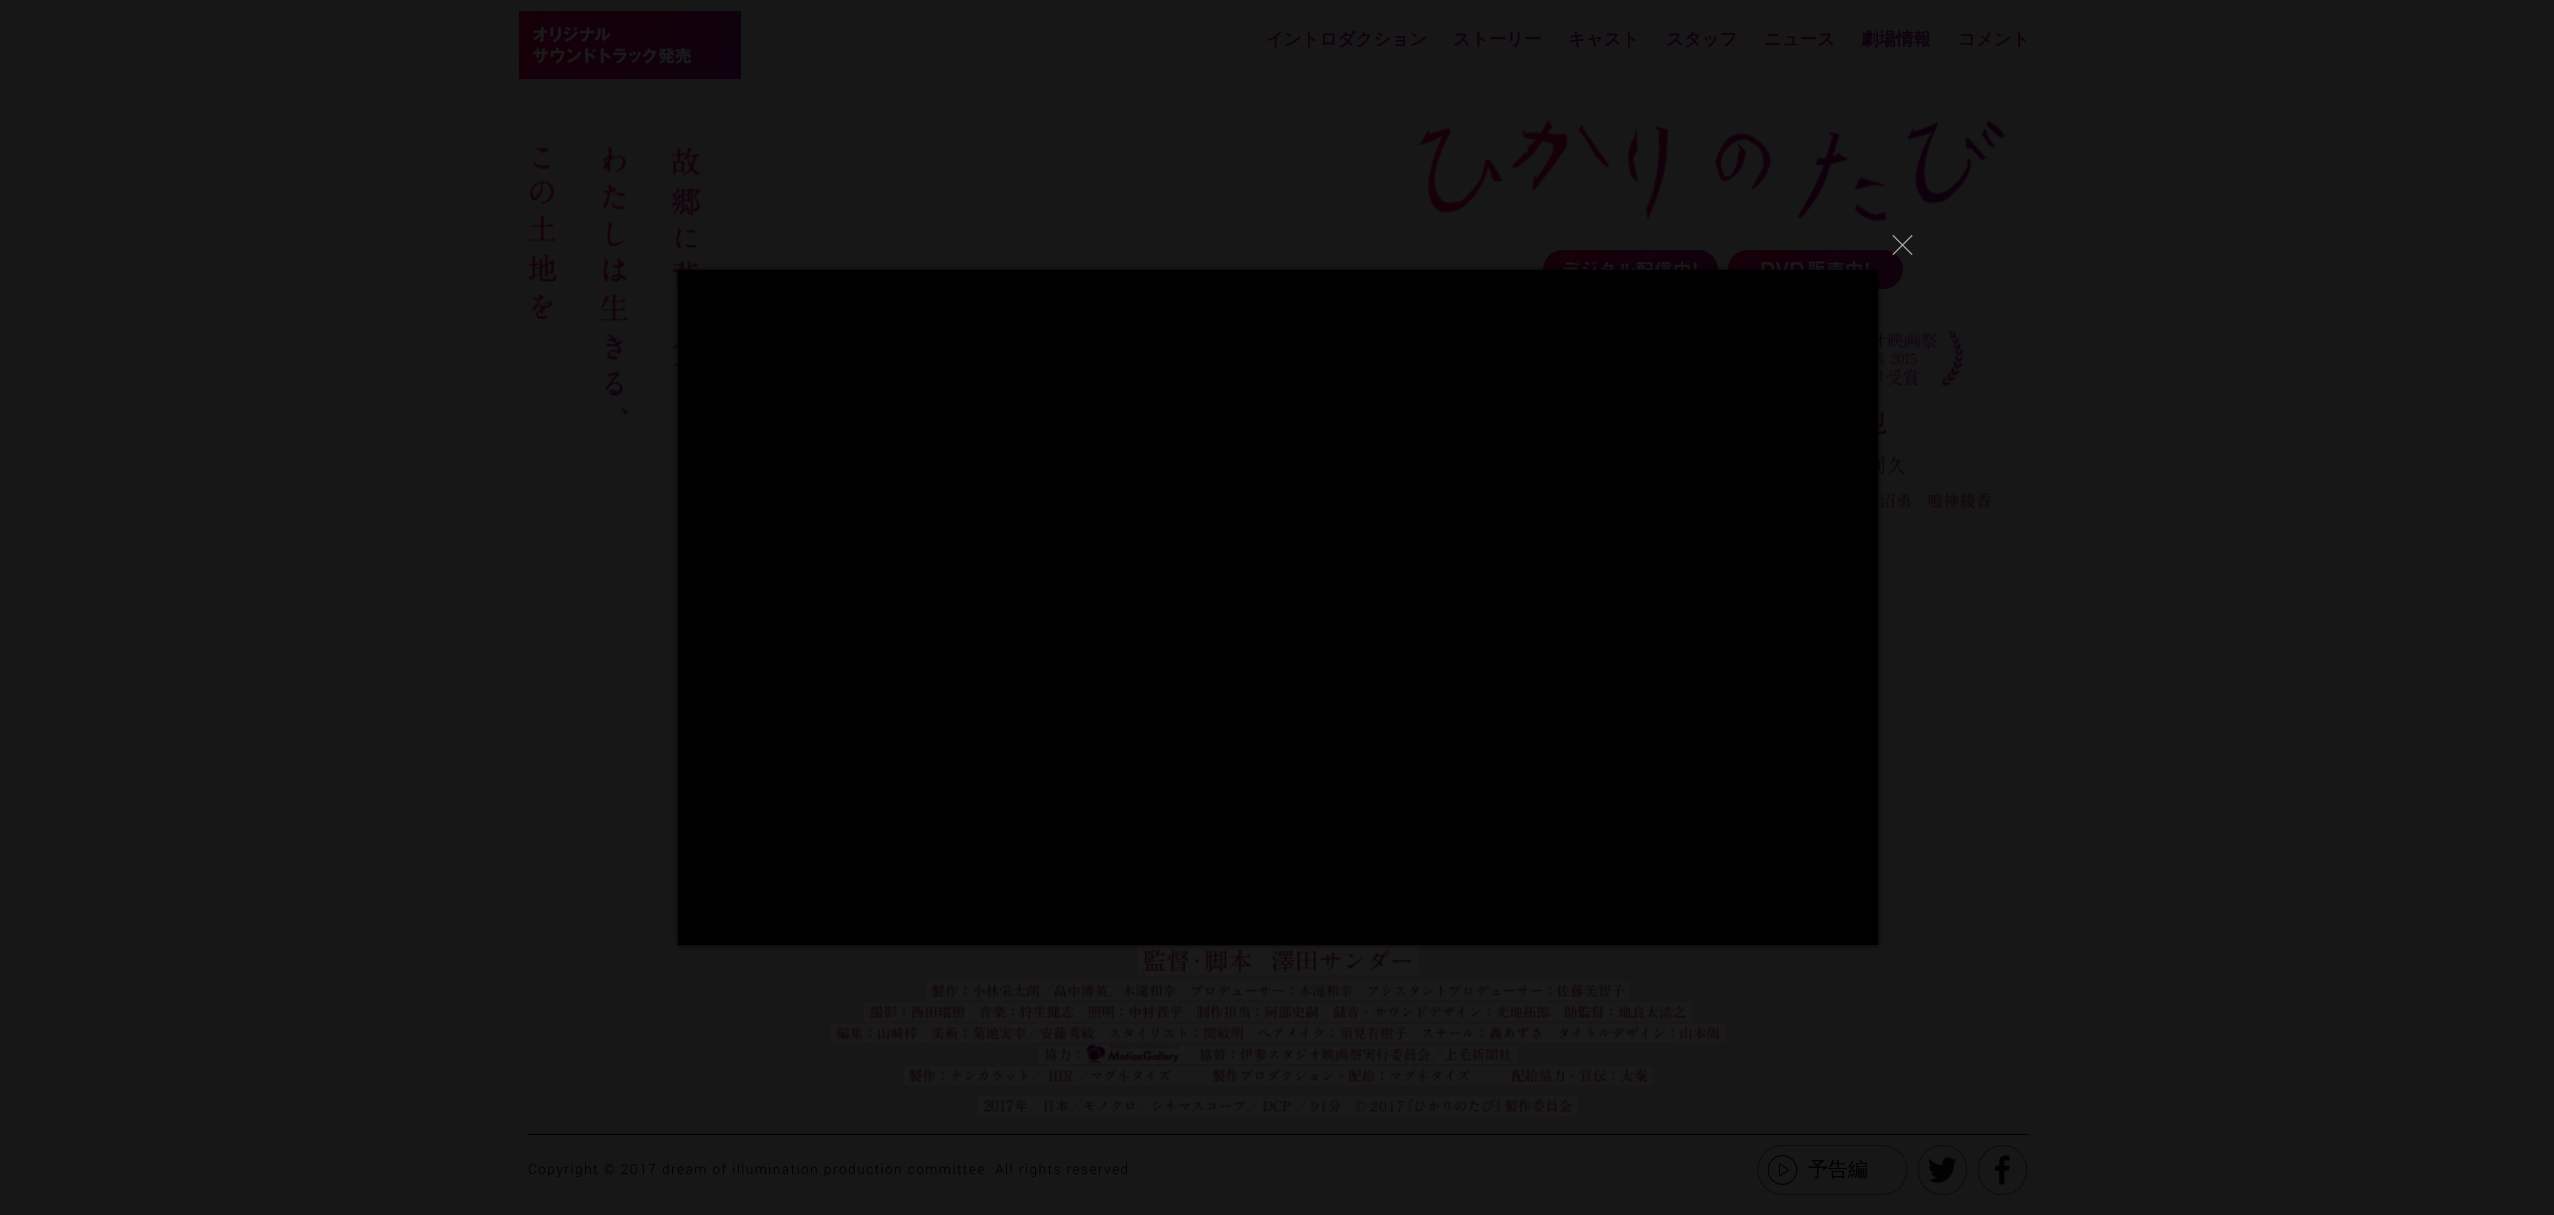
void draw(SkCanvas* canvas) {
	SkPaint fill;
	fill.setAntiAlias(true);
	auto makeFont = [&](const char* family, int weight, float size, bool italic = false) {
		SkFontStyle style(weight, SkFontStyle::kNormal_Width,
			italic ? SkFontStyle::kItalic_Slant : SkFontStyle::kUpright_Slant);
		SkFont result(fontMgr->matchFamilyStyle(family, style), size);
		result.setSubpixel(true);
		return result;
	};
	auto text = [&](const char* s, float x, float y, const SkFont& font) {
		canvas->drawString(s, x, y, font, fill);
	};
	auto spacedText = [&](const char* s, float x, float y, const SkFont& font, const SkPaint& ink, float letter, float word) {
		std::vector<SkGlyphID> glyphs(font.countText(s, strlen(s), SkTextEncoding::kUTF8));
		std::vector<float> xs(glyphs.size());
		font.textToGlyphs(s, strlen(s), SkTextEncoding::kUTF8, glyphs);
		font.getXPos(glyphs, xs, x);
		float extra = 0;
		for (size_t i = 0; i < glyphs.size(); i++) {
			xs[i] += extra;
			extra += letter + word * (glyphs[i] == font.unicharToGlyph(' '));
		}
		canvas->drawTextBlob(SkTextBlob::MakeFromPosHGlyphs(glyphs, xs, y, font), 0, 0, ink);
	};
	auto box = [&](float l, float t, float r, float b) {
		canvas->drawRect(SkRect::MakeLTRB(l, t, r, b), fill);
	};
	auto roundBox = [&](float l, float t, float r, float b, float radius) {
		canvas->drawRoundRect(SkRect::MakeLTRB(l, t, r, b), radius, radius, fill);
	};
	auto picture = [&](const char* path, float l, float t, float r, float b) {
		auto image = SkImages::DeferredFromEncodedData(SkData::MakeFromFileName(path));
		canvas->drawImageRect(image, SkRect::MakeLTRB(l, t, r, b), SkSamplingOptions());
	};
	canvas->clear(0xFF171717);
	picture("image0.png", 519, 11, 741, 79);
	picture("image1.png", 527, 146, 701, 415);
	picture("image2.png", 1418, 119, 2006, 222);
	{
		const SkColor colors[] = {0xFF170008, 0xFF0F010D};
		const float stops[] = {0, 1};
		const SkPoint ends[] = {{1577, 216}, {1683, 323}};
		fill.setShader(SkGradientShader::MakeLinear(ends, colors, stops, 2, SkTileMode::kClamp));
		fill.setAlpha(255);
	}
	roundBox(1543, 250, 1718, 289, 19.5f);
	picture("image3.png", 1563, 261, 1697, 270);
	{
		const SkColor colors[] = {0xFF170008, 0xFF0F010D};
		const float stops[] = {0, 1};
		const SkPoint ends[] = {{1762, 216}, {1868, 323}};
		fill.setShader(SkGradientShader::MakeLinear(ends, colors, stops, 2, SkTileMode::kClamp));
		fill.setAlpha(255);
	}
	roundBox(1728, 250, 1903, 289, 19.5f);
	picture("image4.png", 1761, 261, 1869, 270);
	picture("image5.png", 1878, 330, 1964, 387);
	picture("image6.png", 1878, 412, 1992, 509);
	picture("image7.png", 831, 946, 1725, 1115);
	fill.setShader(nullptr);
	fill.setColor(0xCC000000);
	fill.setMaskFilter(SkMaskFilter::MakeBlur(kNormal_SkBlurStyle, 3));
	canvas->drawRect(SkRect::MakeLTRB(678, 270, 1878, 945), fill);
	fill.setMaskFilter(nullptr);
	picture("image8.png", 1892, 235, 1913, 255);
	fill.setColor(0xFF000000);
	box(678, 270, 1878, 945);
	fill.setColor(0xFF141414);
	box(0, 1134, 2554, 1135);
	fill.setColor(0xFF020202);
	box(528, 1134, 2028, 1135);
	fill.setStyle(SkPaint::kStroke_Style);
	fill.setStrokeWidth(1.2f);
	fill.setPathEffect(SkDashPathEffect::Make({{1.25f, 1.25f}}, 0));
	canvas->drawPath(SkPathBuilder().moveTo(1782.5f, 1145.5f).lineTo(1882.5f, 1145.5f).cubicTo(1896, 1145.5f, 1907, 1156.5f, 1907, 1170).cubicTo(1907, 1183.5f, 1896, 1194.5f, 1882.5f, 1194.5f).lineTo(1782.5f, 1194.5f).cubicTo(1769, 1194.5f, 1758, 1183.5f, 1758, 1170).cubicTo(1758, 1156.5f, 1769, 1145.5f, 1782.5f, 1145.5f).close().detach(), fill);
	fill.setPathEffect(nullptr);
	picture("image9.png", 1768, 1155, 1798, 1185);
	fill.setPathEffect(SkDashPathEffect::Make({{1.25f, 1.25f}}, 0));
	canvas->drawPath(SkPathBuilder().moveTo(1942.5f, 1145.5f).cubicTo(1974.5f, 1145.5f, 1974.5f, 1194.5f, 1942.5f, 1194.5f).cubicTo(1910.5f, 1194.5f, 1910.5f, 1145.5f, 1942.5f, 1145.5f).close().detach(), fill);
	fill.setPathEffect(nullptr);
	picture("image10.png", 1928, 1157, 1957, 1183);
	fill.setPathEffect(SkDashPathEffect::Make({{1.25f, 1.25f}}, 0));
	canvas->drawPath(SkPathBuilder().moveTo(2002.5f, 1145.5f).cubicTo(2034.5f, 1145.5f, 2034.5f, 1194.5f, 2002.5f, 1194.5f).cubicTo(1970.5f, 1194.5f, 1970.5f, 1145.5f, 2002.5f, 1145.5f).close().detach(), fill);
	fill.setPathEffect(nullptr);
	picture("image11.png", 1995, 1155, 2010, 1185);
	auto font1 = makeFont("WenQuanYi Zen Hei", 700, 17.5f);
	fill.setStyle(SkPaint::kFill_Style);
	fill.setColor(0xFF0F010D);
	text("イントロダクション", 1266, 45, font1);
	text("ストーリー", 1453, 45, font1);
	text("キャスト", 1568, 45, font1);
	text("スタッフ", 1666, 45, font1);
	text("ニュース", 1764, 45, font1);
	text("劇場情報", 1861, 45, font1);
	text("コメント", 1958, 45, font1);
	auto font2 = makeFont("Roboto", 300, 13.75f);
	fill.setColor(0xFF000000);
	spacedText("Copyright © 2017 dream of illumination production committee. All rights reserved.", 528, 1174, font2, fill, 1.38f, 0);
	auto font3 = makeFont("WenQuanYi Zen Hei", 500, 20);
	text("予告編", 1808, 1176, font3);
}
